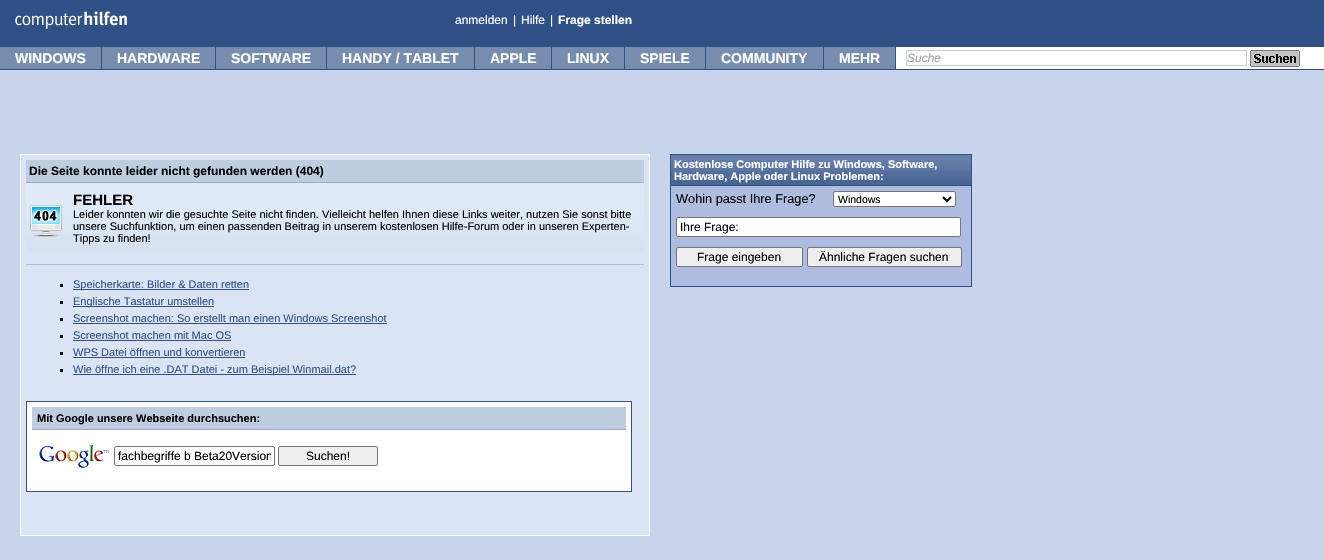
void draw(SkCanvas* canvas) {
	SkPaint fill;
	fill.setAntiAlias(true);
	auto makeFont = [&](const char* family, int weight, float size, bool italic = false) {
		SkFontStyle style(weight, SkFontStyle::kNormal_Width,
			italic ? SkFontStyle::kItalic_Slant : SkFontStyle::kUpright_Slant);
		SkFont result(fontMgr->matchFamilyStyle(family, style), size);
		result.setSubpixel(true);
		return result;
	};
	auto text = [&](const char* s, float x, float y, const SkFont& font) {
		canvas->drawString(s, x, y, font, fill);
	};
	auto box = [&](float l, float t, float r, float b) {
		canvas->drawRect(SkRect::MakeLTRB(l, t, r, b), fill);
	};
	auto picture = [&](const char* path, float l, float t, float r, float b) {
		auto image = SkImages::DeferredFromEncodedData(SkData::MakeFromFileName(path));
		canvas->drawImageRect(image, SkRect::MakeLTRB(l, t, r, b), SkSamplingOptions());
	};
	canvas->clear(0xFFC7D4EC);
	fill.setColor(0xFF305187);
	box(0, 0, 1324, 47);
	picture("image0.png", 15, 11, 127, 29);
	fill.setColor(0xFFFFFFFF);
	box(896, 47, 1324, 69);
	fill.setColor(0xFF305187);
	box(0, 69, 1324, 70);
	box(101, 47, 896, 69);
	fill.setColor(0xFF778DAF);
	box(0, 47, 101, 69);
	box(102, 47, 215, 69);
	box(216, 47, 326, 69);
	box(327, 47, 474, 69);
	box(475, 47, 551, 69);
	box(552, 47, 624, 69);
	box(625, 47, 705, 69);
	box(706, 47, 823, 69);
	box(824, 47, 895, 69);
	fill.setStyle(SkPaint::kStroke_Style);
	fill.setStrokeWidth(1);
	fill.setColor(0xFFCCCCCC);
	canvas->drawRect(SkRect::MakeLTRB(906.5f, 50.5f, 1246.5f, 65.5f), fill);
	picture("image1.png", 1250, 50, 1300, 67);
	fill.setStyle(SkPaint::kFill_Style);
	fill.setColor(0xFFDAE4F5);
	canvas->drawRect(SkRect::MakeLTRB(20.5f, 154.5f, 649.5f, 535.5f), fill);
	fill.setStyle(SkPaint::kStroke_Style);
	fill.setColor(0xFFFFFFFF);
	canvas->drawRect(SkRect::MakeLTRB(20.5f, 154.5f, 649.5f, 535.5f), fill);
	fill.setStyle(SkPaint::kFill_Style);
	fill.setColor(0xFFBFCDE1);
	box(26, 160, 644, 182);
	fill.setColor(0xFF98ABC9);
	box(26, 182, 644, 183);
	picture("image2.png", 26, 183, 644, 252);
	fill.setColor(0xFFACBDD7);
	box(26, 264, 644, 265);
	picture("image3.png", 30, 205, 62, 237);
	fill.setColor(0xFF000000);
	box(60, 284, 63, 287);
	fill.setColor(0xFF305187);
	box(73, 289, 249, 290);
	fill.setColor(0xFF000000);
	box(60, 301, 63, 304);
	fill.setColor(0xFF305187);
	box(73, 306, 214, 307);
	fill.setColor(0xFF000000);
	box(60, 318, 63, 321);
	fill.setColor(0xFF305187);
	box(73, 323, 387, 324);
	fill.setColor(0xFF000000);
	box(60, 335, 63, 338);
	fill.setColor(0xFF305187);
	box(73, 340, 231, 341);
	fill.setColor(0xFF000000);
	box(60, 352, 63, 355);
	fill.setColor(0xFF305187);
	box(73, 357, 245, 358);
	fill.setColor(0xFF000000);
	box(60, 369, 63, 372);
	fill.setColor(0xFF305187);
	box(73, 374, 356, 375);
	fill.setColor(0xFFFFFFFF);
	canvas->drawRect(SkRect::MakeLTRB(26.5f, 401.5f, 631.5f, 491.5f), fill);
	fill.setStyle(SkPaint::kStroke_Style);
	fill.setColor(0xFF305187);
	canvas->drawRect(SkRect::MakeLTRB(26.5f, 401.5f, 631.5f, 491.5f), fill);
	fill.setStyle(SkPaint::kFill_Style);
	fill.setColor(0xFFBFCDE1);
	box(32, 407, 626, 429);
	fill.setColor(0xFF98ABC9);
	box(32, 429, 626, 430);
	picture("image4.png", 39, 445, 109, 468);
	fill.setStyle(SkPaint::kStroke_Style);
	fill.setColor(0xFF767676);
	canvas->drawRoundRect(SkRect::MakeLTRB(114.5f, 446.5f, 274.5f, 465.5f), 1.5f, 1.5f, fill);
	fill.setStyle(SkPaint::kFill_Style);
	fill.setColor(0xFFEFEFEF);
	canvas->drawRoundRect(SkRect::MakeLTRB(278.5f, 446.5f, 377.5f, 465.5f), 1.5f, 1.5f, fill);
	fill.setStyle(SkPaint::kStroke_Style);
	fill.setColor(0xFF767676);
	canvas->drawRoundRect(SkRect::MakeLTRB(278.5f, 446.5f, 377.5f, 465.5f), 1.5f, 1.5f, fill);
	fill.setStyle(SkPaint::kFill_Style);
	fill.setColor(0xFFAEBCE0);
	box(671, 186, 971, 286);
	fill.setStyle(SkPaint::kStroke_Style);
	fill.setColor(0xFF305187);
	canvas->drawRect(SkRect::MakeLTRB(670.5f, 154.5f, 971.5f, 286.5f), fill);
	fill.setStyle(SkPaint::kFill_Style);
	fill.setColor(0xFF476694);
	box(671, 181, 971, 185);
	picture("image5.png", 671, 155, 971, 181);
	fill.setColor(0xFF305187);
	box(671, 185, 971, 186);
	fill.setColor(0xFFFFFFFF);
	canvas->drawRoundRect(SkRect::MakeLTRB(833.5f, 191.5f, 955.5f, 206.5f), 1.5f, 1.5f, fill);
	fill.setStyle(SkPaint::kStroke_Style);
	fill.setColor(0xFF767676);
	canvas->drawRoundRect(SkRect::MakeLTRB(833.5f, 191.5f, 955.5f, 206.5f), 1.5f, 1.5f, fill);
	fill.setStrokeWidth(2);
	fill.setColor(0xFF000000);
	canvas->drawPath(SkPathBuilder().moveTo(943, 197).lineTo(947, 201).lineTo(951, 197).detach(), fill);
	fill.setStyle(SkPaint::kFill_Style);
	fill.setColor(0xFFFFFFFF);
	canvas->drawRoundRect(SkRect::MakeLTRB(676.5f, 217.5f, 960.5f, 236.5f), 1.5f, 1.5f, fill);
	fill.setStyle(SkPaint::kStroke_Style);
	fill.setStrokeWidth(1);
	fill.setColor(0xFF767676);
	canvas->drawRoundRect(SkRect::MakeLTRB(676.5f, 217.5f, 960.5f, 236.5f), 1.5f, 1.5f, fill);
	fill.setStyle(SkPaint::kFill_Style);
	fill.setColor(0xFFEFEFEF);
	canvas->drawRoundRect(SkRect::MakeLTRB(676.5f, 247.5f, 802.5f, 266.5f), 1.5f, 1.5f, fill);
	fill.setStyle(SkPaint::kStroke_Style);
	fill.setColor(0xFF767676);
	canvas->drawRoundRect(SkRect::MakeLTRB(676.5f, 247.5f, 802.5f, 266.5f), 1.5f, 1.5f, fill);
	fill.setStyle(SkPaint::kFill_Style);
	fill.setColor(0xFFEFEFEF);
	canvas->drawRoundRect(SkRect::MakeLTRB(807.5f, 247.5f, 961.5f, 266.5f), 1.5f, 1.5f, fill);
	fill.setStyle(SkPaint::kStroke_Style);
	fill.setColor(0xFF767676);
	canvas->drawRoundRect(SkRect::MakeLTRB(807.5f, 247.5f, 961.5f, 266.5f), 1.5f, 1.5f, fill);
	auto font1 = makeFont("Liberation Sans", 400, 12);
	fill.setStyle(SkPaint::kFill_Style);
	fill.setColor(0xFFFFFFFF);
	text("anmelden", 455, 24, font1);
	text("|", 513, 24, font1);
	text("Hilfe", 521, 24, font1);
	text("|", 550, 24, font1);
	auto font2 = makeFont("Liberation Sans", 700, 12);
	text("Frage stellen", 558, 24, font2);
	auto font3 = makeFont("Liberation Sans", 700, 14);
	text("WINDOWS", 15, 63, font3);
	text("HARDWARE", 117, 63, font3);
	text("SOFTWARE", 231, 63, font3);
	text("HANDY / TABLET", 342, 63, font3);
	text("APPLE", 490, 63, font3);
	text("LINUX", 567, 63, font3);
	text("SPIELE", 640, 63, font3);
	text("COMMUNITY", 721, 63, font3);
	text("MEHR", 839, 63, font3);
	auto font4 = makeFont("Liberation Sans", 400, 12, true);
	fill.setColor(0xFFA1A1A1);
	text("Suche", 907, 62, font4);
	fill.setColor(0xFF000000);
	text("Die Seite konnte leider nicht gefunden werden (404)", 29, 175, font2);
	auto font5 = makeFont("Liberation Sans", 700, 15);
	text("FEHLER", 73, 205, font5);
	auto font6 = makeFont("Liberation Sans", 400, 11);
	text("Leider konnten wir die gesuchte Seite nicht finden. Vielleicht helfen Ihnen diese Links weiter, nutzen Sie sonst bitte", 73, 218, font6);
	text("unsere Suchfunktion, um einen passenden Beitrag in unserem kostenlosen Hilfe-Forum oder in unseren Experten-", 73, 230, font6);
	text("Tipps zu finden!", 73, 242, font6);
	fill.setColor(0xFF305187);
	text("Speicherkarte: Bilder & Daten retten", 73, 288, font6);
	text("Englische Tastatur umstellen", 73, 305, font6);
	text("Screenshot machen: So erstellt man einen Windows Screenshot", 73, 322, font6);
	text("Screenshot machen mit Mac OS", 73, 339, font6);
	text("WPS Datei öffnen und konvertieren", 73, 356, font6);
	text("Wie öffne ich eine .DAT Datei - zum Beispiel Winmail.dat?", 73, 373, font6);
	auto font7 = makeFont("Liberation Sans", 700, 11);
	fill.setColor(0xFF000000);
	text("Mit Google unsere Webseite durchsuchen:", 37, 422, font7);
	canvas->save();
	canvas->clipRect(SkRect::MakeLTRB(118, 449, 271, 463));
	text("fachbegriffe b Beta20Version", 118, 460, font1);
	canvas->restore();
	text("Suchen!", 306, 460, font1);
	fill.setColor(0xFFFFFFFF);
	text("Kostenlose Computer Hilfe zu Windows, Software,", 674, 168, font7);
	text("Hardware, Apple oder Linux Problemen:", 674, 180, font7);
	auto font8 = makeFont("Liberation Sans", 400, 12.75f);
	fill.setColor(0xFF000000);
	text("Wohin passt Ihre Frage?", 676, 203, font8);
	auto font9 = makeFont("Liberation Sans", 400, 10.5f);
	text("Windows", 838, 203, font9);
	text("Ihre Frage:", 680, 231, font1);
	text("Frage eingeben", 697, 261, font1);
	text("Ähnliche Fragen suchen", 819, 261, font1);
}
